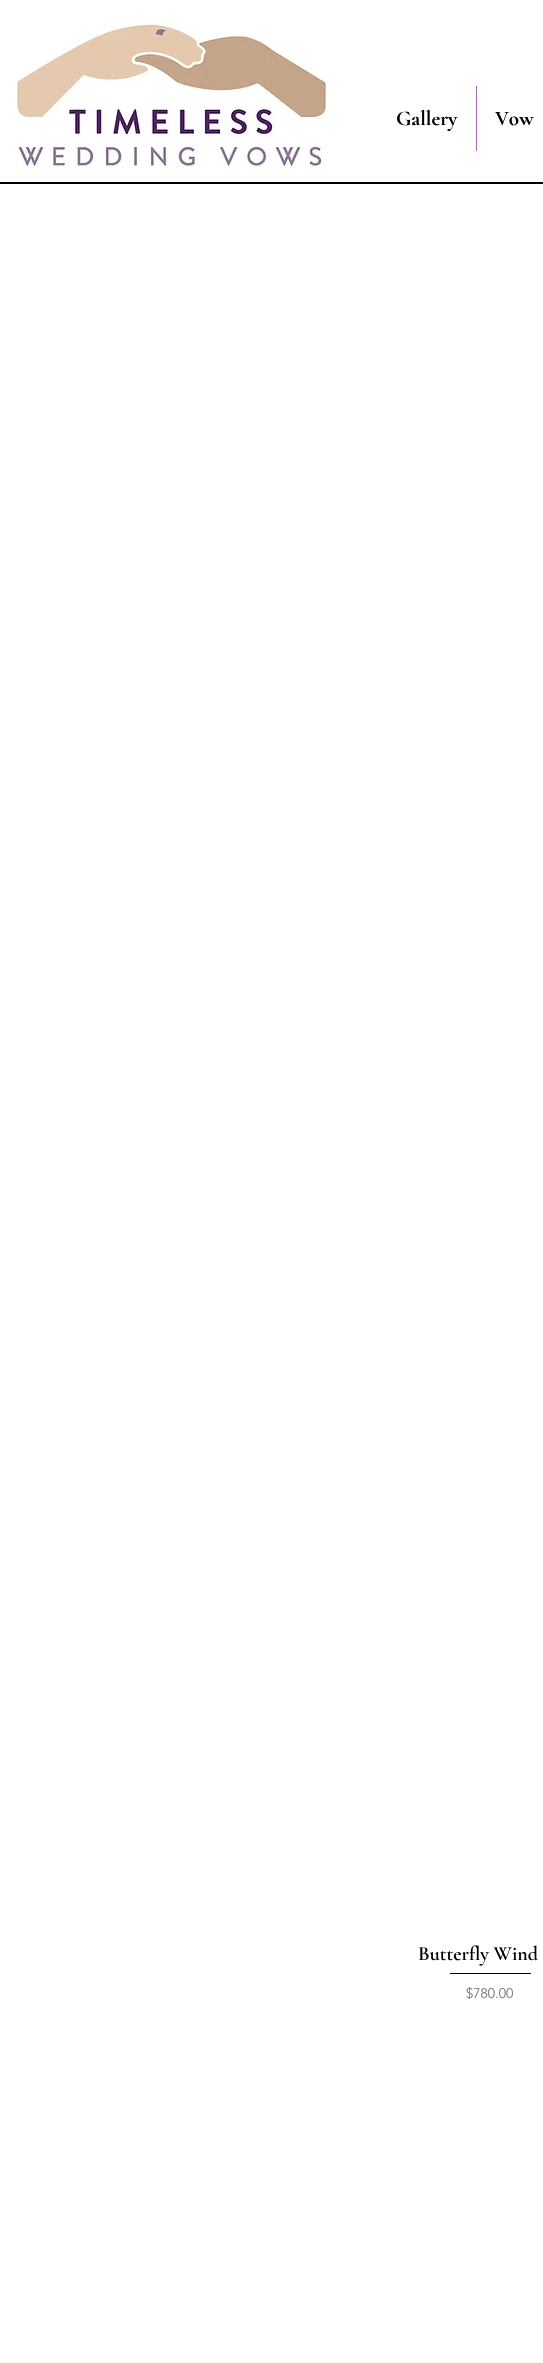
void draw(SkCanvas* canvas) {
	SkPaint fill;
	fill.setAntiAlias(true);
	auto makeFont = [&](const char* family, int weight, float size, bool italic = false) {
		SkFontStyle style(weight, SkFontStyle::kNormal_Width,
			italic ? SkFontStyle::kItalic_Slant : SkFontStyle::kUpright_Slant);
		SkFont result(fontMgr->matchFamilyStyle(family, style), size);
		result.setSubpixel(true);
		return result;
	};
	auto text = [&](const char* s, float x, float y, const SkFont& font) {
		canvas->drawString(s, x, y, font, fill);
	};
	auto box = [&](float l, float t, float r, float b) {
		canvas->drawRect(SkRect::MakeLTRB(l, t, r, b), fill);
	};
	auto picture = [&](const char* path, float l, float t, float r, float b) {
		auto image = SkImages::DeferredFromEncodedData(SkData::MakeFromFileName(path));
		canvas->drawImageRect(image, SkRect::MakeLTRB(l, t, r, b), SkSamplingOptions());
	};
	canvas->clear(0xFFFFFFFF);
	picture("image0.png", 14, 23, 327, 168);
	fill.setColor(0xFFA669B3);
	box(476, 86, 477, 151);
	fill.setColor(0xFF000000);
	box(0, 182, 543, 184);
	box(450, 1973, 531, 1974);
	auto font1 = makeFont("Cormorant Garamond", 700, 21);
	text("Gallery", 396, 125, font1);
	text("Vow", 495, 125, font1);
	auto font2 = makeFont("Cormorant Garamond", 600, 20);
	text("Butterfly Wind", 418, 1960, font2);
	auto font3 = makeFont("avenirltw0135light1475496", 300, 14);
	fill.setColor(0xFF757070);
	text("$780.00", 466, 1998, font3);
}
